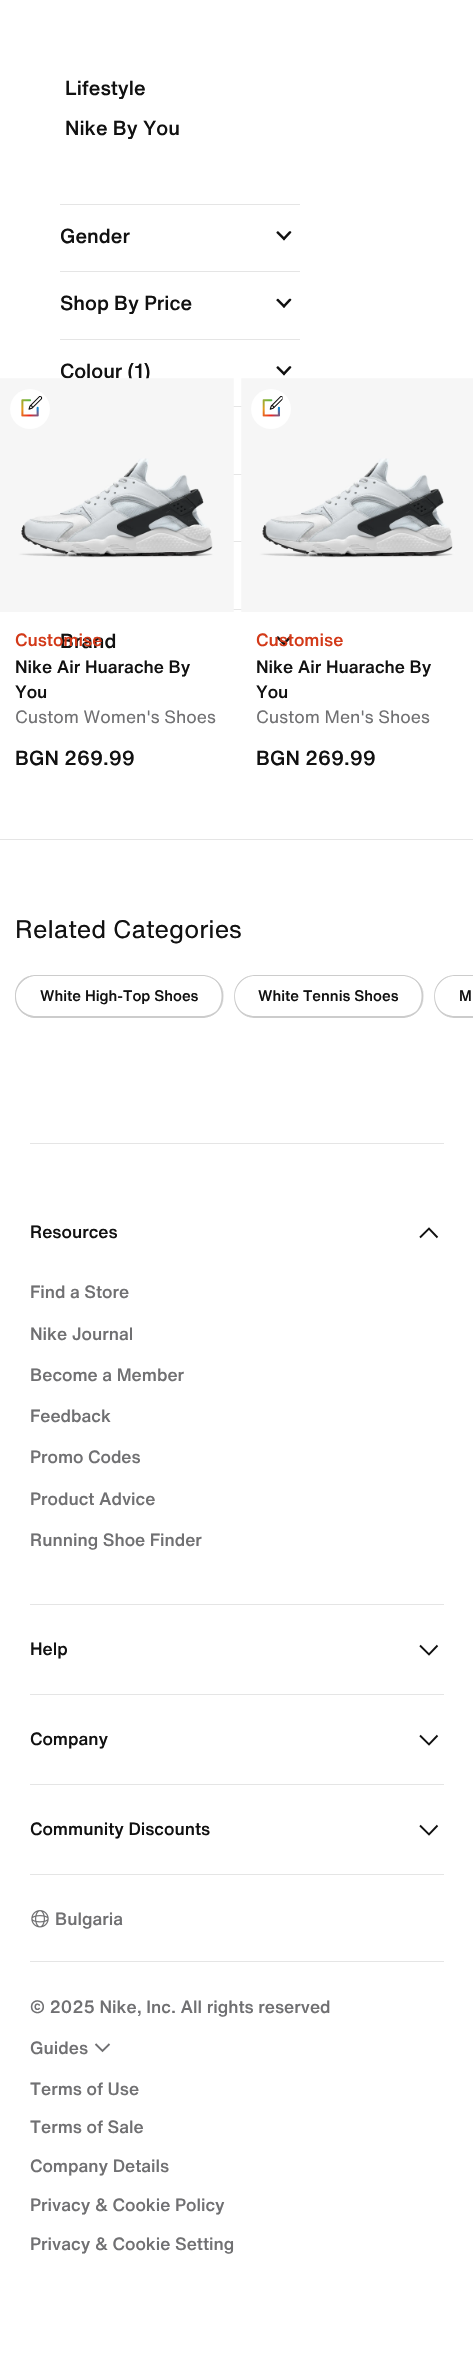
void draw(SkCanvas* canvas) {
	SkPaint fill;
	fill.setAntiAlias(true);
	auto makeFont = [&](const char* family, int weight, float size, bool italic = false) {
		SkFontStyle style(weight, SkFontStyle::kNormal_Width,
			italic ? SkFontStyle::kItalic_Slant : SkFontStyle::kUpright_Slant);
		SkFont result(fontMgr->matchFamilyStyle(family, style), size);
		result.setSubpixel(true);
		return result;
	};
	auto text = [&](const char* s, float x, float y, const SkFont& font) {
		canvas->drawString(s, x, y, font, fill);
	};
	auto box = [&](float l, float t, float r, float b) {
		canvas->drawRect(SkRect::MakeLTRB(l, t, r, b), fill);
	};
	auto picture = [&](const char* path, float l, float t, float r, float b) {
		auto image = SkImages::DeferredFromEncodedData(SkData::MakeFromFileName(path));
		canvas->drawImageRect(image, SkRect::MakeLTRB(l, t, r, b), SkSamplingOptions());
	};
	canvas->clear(0xFFFFFFFF);
	fill.setColor(0xFFE5E5E5);
	box(60, 204, 300, 205);
	box(60, 271, 300, 272);
	fill.setColor(0xFF111111);
	canvas->drawPath(SkPathBuilder().moveTo(278.5f, 231.5f).lineTo(285.5f, 238.5f).lineTo(284, 240.5f).lineTo(276.5f, 233).cubicTo(276, 232, 277.5f, 230.5f, 278.5f, 231.5f).close().detach(), fill);
	canvas->drawPath(SkPathBuilder().moveTo(282.5f, 238.5f).lineTo(289, 231.5f).cubicTo(289.5f, 231, 290.5f, 231, 291, 231.5f).cubicTo(291.5f, 232, 291.5f, 232.5f, 291, 233).lineTo(284, 240.5f).close().detach(), fill);
	fill.setColor(0xFFE5E5E5);
	box(60, 339, 300, 340);
	fill.setColor(0xFF111111);
	canvas->drawPath(SkPathBuilder().moveTo(278.5f, 299).lineTo(285.5f, 306).lineTo(284, 308).lineTo(276.5f, 300.5f).cubicTo(276, 299.5f, 277.5f, 298, 278.5f, 299).close().detach(), fill);
	canvas->drawPath(SkPathBuilder().moveTo(282.5f, 306).lineTo(289, 299).cubicTo(289.5f, 298.5f, 290.5f, 298.5f, 291, 299).cubicTo(291.5f, 299.5f, 291.5f, 300, 291, 300.5f).lineTo(284, 308).close().detach(), fill);
	fill.setColor(0xFFE5E5E5);
	box(233, 406, 242, 407);
	fill.setColor(0xFF111111);
	canvas->drawPath(SkPathBuilder().moveTo(278.5f, 366.5f).lineTo(285.5f, 373.5f).lineTo(284, 375.5f).lineTo(276.5f, 368).cubicTo(276, 367, 277.5f, 365.5f, 278.5f, 366.5f).close().detach(), fill);
	canvas->drawPath(SkPathBuilder().moveTo(282.5f, 373.5f).lineTo(289, 366.5f).cubicTo(289.5f, 366, 290.5f, 366, 291, 366.5f).cubicTo(291.5f, 367, 291.5f, 367.5f, 291, 368).lineTo(284, 375.5f).close().detach(), fill);
	fill.setColor(0xFFE5E5E5);
	box(233, 474, 242, 475);
	box(233, 541, 242, 542);
	box(233, 609, 242, 610);
	fill.setColor(0xFF111111);
	canvas->drawPath(SkPathBuilder().moveTo(278.5f, 636.5f).lineTo(285.5f, 643.5f).lineTo(284, 645.5f).lineTo(276.5f, 638).cubicTo(276, 637, 277.5f, 635.5f, 278.5f, 636.5f).close().detach(), fill);
	canvas->drawPath(SkPathBuilder().moveTo(282.5f, 643.5f).lineTo(289, 636.5f).cubicTo(289.5f, 636, 290.5f, 636, 291, 636.5f).cubicTo(291.5f, 637, 291.5f, 637.5f, 291, 638).lineTo(284, 645.5f).close().detach(), fill);
	picture("image2.png", 241, 378, 473, 612);
	fill.setColor(0xFFFFFFFF);
	canvas->drawCircle(271, 409, 20, fill);
	picture("image3.png", 262, 396, 283, 417);
	fill.setColor(0xFFE5E5E5);
	box(0, 839, 473, 840);
	canvas->save();
	canvas->clipRect(SkRect::MakeLTRB(15, 945, 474, 1108));
	fill.setColor(0xFFCCCCCC);
	canvas->drawPath(SkPathBuilder().moveTo(36, 975).cubicTo(8, 975, 7, 1018, 38, 1018).cubicTo(26, 1018, 16, 1008, 16, 996).cubicTo(16, 985, 26, 975, 38, 975).close().detach(), fill);
	canvas->restore();
	canvas->drawPath(SkPathBuilder().moveTo(15, 996).cubicTo(15, 1008, 25, 1018, 36, 1018).lineTo(202, 1018).cubicTo(214, 1018, 224, 1008, 224, 996).cubicTo(224, 1007, 214, 1016, 202, 1016).lineTo(36, 1016).cubicTo(25, 1016, 15, 1007, 15, 996).close().detach(), fill);
	canvas->drawPath(SkPathBuilder().moveTo(201, 1018).cubicTo(231, 1018, 231, 975, 201, 975).cubicTo(229, 975, 228, 1018, 201, 1018).close().detach(), fill);
	canvas->drawPath(SkPathBuilder().moveTo(36, 976).lineTo(202, 976).cubicTo(214, 976, 224, 986, 224, 997).lineTo(224, 996).cubicTo(224, 985, 214, 975, 202, 975).lineTo(36, 975).cubicTo(25, 975, 15, 985, 15, 996).lineTo(15, 997).cubicTo(15, 986, 25, 976, 36, 976).close().detach(), fill);
	canvas->drawPath(SkPathBuilder().moveTo(256, 975).cubicTo(227, 975, 227, 1018, 256, 1018).cubicTo(245, 1018, 235, 1008, 235, 996).cubicTo(235, 985, 245, 975, 256, 975).close().detach(), fill);
	canvas->drawPath(SkPathBuilder().moveTo(234, 996).cubicTo(234, 1008, 244, 1018, 256, 1018).lineTo(402, 1018).cubicTo(414, 1018, 424, 1008, 424, 996).cubicTo(424, 1007, 414, 1016, 402, 1016).lineTo(255, 1016).cubicTo(243, 1016, 234, 1007, 234, 996).close().detach(), fill);
	canvas->drawPath(SkPathBuilder().moveTo(401, 1018).cubicTo(431, 1018, 431, 975, 401, 975).cubicTo(429, 975, 428, 1018, 401, 1018).close().detach(), fill);
	canvas->drawPath(SkPathBuilder().moveTo(255, 976).lineTo(402, 976).cubicTo(414, 976, 424, 986, 424, 997).lineTo(424, 996).cubicTo(424, 985, 414, 975, 402, 975).lineTo(256, 975).cubicTo(244, 975, 234, 985, 234, 996).lineTo(234, 997).cubicTo(234, 986, 243, 976, 255, 976).close().detach(), fill);
	canvas->drawPath(SkPathBuilder().moveTo(456, 975).cubicTo(427, 975, 427, 1018, 456, 1018).cubicTo(445, 1018, 435, 1008, 435, 996).cubicTo(435, 985, 445, 975, 456, 975).close().detach(), fill);
	canvas->drawPath(SkPathBuilder().moveTo(434, 996).cubicTo(434, 1008, 444, 1018, 456, 1018).lineTo(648, 1018).cubicTo(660, 1018, 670, 1008, 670, 996).cubicTo(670, 1007, 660, 1016, 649, 1016).lineTo(455, 1016).cubicTo(443, 1016, 434, 1007, 434, 996).close().moveTo(455, 976).lineTo(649, 976).cubicTo(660, 976, 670, 986, 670, 997).lineTo(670, 996).cubicTo(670, 985, 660, 975, 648, 975).lineTo(456, 975).cubicTo(444, 975, 434, 985, 434, 996).lineTo(434, 997).cubicTo(434, 986, 443, 976, 455, 976).close().detach(), fill);
	fill.setColor(0xFFE5E5E5);
	box(30, 1143, 444, 1144);
	box(30, 1604, 444, 1605);
	fill.setStyle(SkPaint::kStroke_Style);
	fill.setStrokeWidth(1.9f);
	fill.setColor(0xFF111111);
	canvas->drawPath(SkPathBuilder().moveTo(420, 1237.5f).lineTo(429, 1228.5f).lineTo(437.5f, 1237.5f).detach(), fill);
	fill.setStyle(SkPaint::kFill_Style);
	fill.setColor(0xFFE5E5E5);
	box(30, 1694, 444, 1695);
	fill.setStyle(SkPaint::kStroke_Style);
	fill.setColor(0xFF111111);
	canvas->drawPath(SkPathBuilder().moveTo(437.5f, 1645.5f).lineTo(429, 1654.5f).lineTo(420, 1645.5f).detach(), fill);
	fill.setStyle(SkPaint::kFill_Style);
	fill.setColor(0xFFE5E5E5);
	box(30, 1784, 444, 1785);
	fill.setStyle(SkPaint::kStroke_Style);
	fill.setColor(0xFF111111);
	canvas->drawPath(SkPathBuilder().moveTo(437.5f, 1735.5f).lineTo(429, 1744.5f).lineTo(420, 1735.5f).detach(), fill);
	fill.setStyle(SkPaint::kFill_Style);
	fill.setColor(0xFFE5E5E5);
	box(30, 1874, 444, 1875);
	fill.setStyle(SkPaint::kStroke_Style);
	fill.setColor(0xFF111111);
	canvas->drawPath(SkPathBuilder().moveTo(437.5f, 1825.5f).lineTo(429, 1834.5f).lineTo(420, 1825.5f).detach(), fill);
	picture("image4.png", 31, 1910, 49, 1928);
	fill.setStyle(SkPaint::kFill_Style);
	fill.setColor(0xFFE5E5E5);
	box(30, 1961, 444, 1962);
	fill.setStyle(SkPaint::kStroke_Style);
	fill.setColor(0xFF707072);
	canvas->drawPath(SkPathBuilder().moveTo(109.5f, 2044).lineTo(102.5f, 2051).lineTo(95.5f, 2044).detach(), fill);
	auto font1 = makeFont("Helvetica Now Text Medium", 500, 20);
	fill.setStyle(SkPaint::kFill_Style);
	fill.setColor(0xFF111111);
	text("Lifestyle", 65, 95, font1);
	text("Nike By You", 65, 135, font1);
	text("Gender", 60, 243, font1);
	text("Shop By Price", 60, 310, font1);
	text("Colour (1)", 60, 378, font1);
	text("Brand", 60, 648, font1);
	picture("image0.png", 0, 378, 234, 612);
	fill.setColor(0xFFFFFFFF);
	canvas->drawCircle(30, 409, 20, fill);
	picture("image1.png", 21, 396, 43, 417);
	auto font2 = makeFont("Helvetica Now Text Medium", 500, 17.5f);
	fill.setColor(0xFFD33918);
	text("Customise", 15, 646, font2);
	fill.setColor(0xFF111111);
	text("Nike Air Huarache By", 15, 673, font2);
	text("You", 15, 698, font2);
	auto font3 = makeFont("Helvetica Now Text", 400, 17.5f);
	fill.setColor(0xFF707072);
	text("Custom Women's Shoes", 15, 723, font3);
	fill.setColor(0xFF111111);
	text("BGN 269.99", 15, 765, font1);
	fill.setColor(0xFFD33918);
	text("Customise", 256, 646, font2);
	fill.setColor(0xFF111111);
	text("Nike Air Huarache By", 256, 673, font2);
	text("You", 256, 698, font2);
	fill.setColor(0xFF707072);
	text("Custom Men's Shoes", 256, 723, font3);
	fill.setColor(0xFF111111);
	text("BGN 269.99", 256, 765, font1);
	auto font4 = makeFont("Helvetica Now Text", 400, 25);
	text("Related Categories", 15, 938, font4);
	auto font5 = makeFont("Helvetica Now Text Medium", 500, 15);
	text("White High-Top Shoes", 40, 1001, font5);
	text("White Tennis Shoes", 258, 1001, font5);
	text("M", 459, 1001, font5);
	text("Resources", 30, 1238, font2);
	fill.setColor(0xFF707072);
	text("Find a Store", 30, 1298, font2);
	text("Nike Journal", 30, 1340, font2);
	text("Become a Member", 30, 1381, font2);
	text("Feedback", 30, 1422, font2);
	text("Promo Codes", 30, 1463, font2);
	text("Product Advice", 30, 1505, font2);
	text("Running Shoe Finder", 30, 1546, font2);
	fill.setColor(0xFF111111);
	text("Help", 30, 1655, font2);
	text("Company", 30, 1745, font2);
	text("Community Discounts", 30, 1835, font2);
	fill.setColor(0xFF707072);
	text("Bulgaria", 55, 1925, font2);
	text("© 2025 Nike, Inc. All rights reserved", 30, 2013, font2);
	text("Guides", 30, 2054, font2);
	text("Terms of Use", 30, 2095, font2);
	text("Terms of Sale", 30, 2133, font2);
	text("Company Details", 30, 2172, font2);
	text("Privacy & Cookie Policy", 30, 2211, font2);
	text("Privacy & Cookie Setting", 30, 2250, font2);
}
